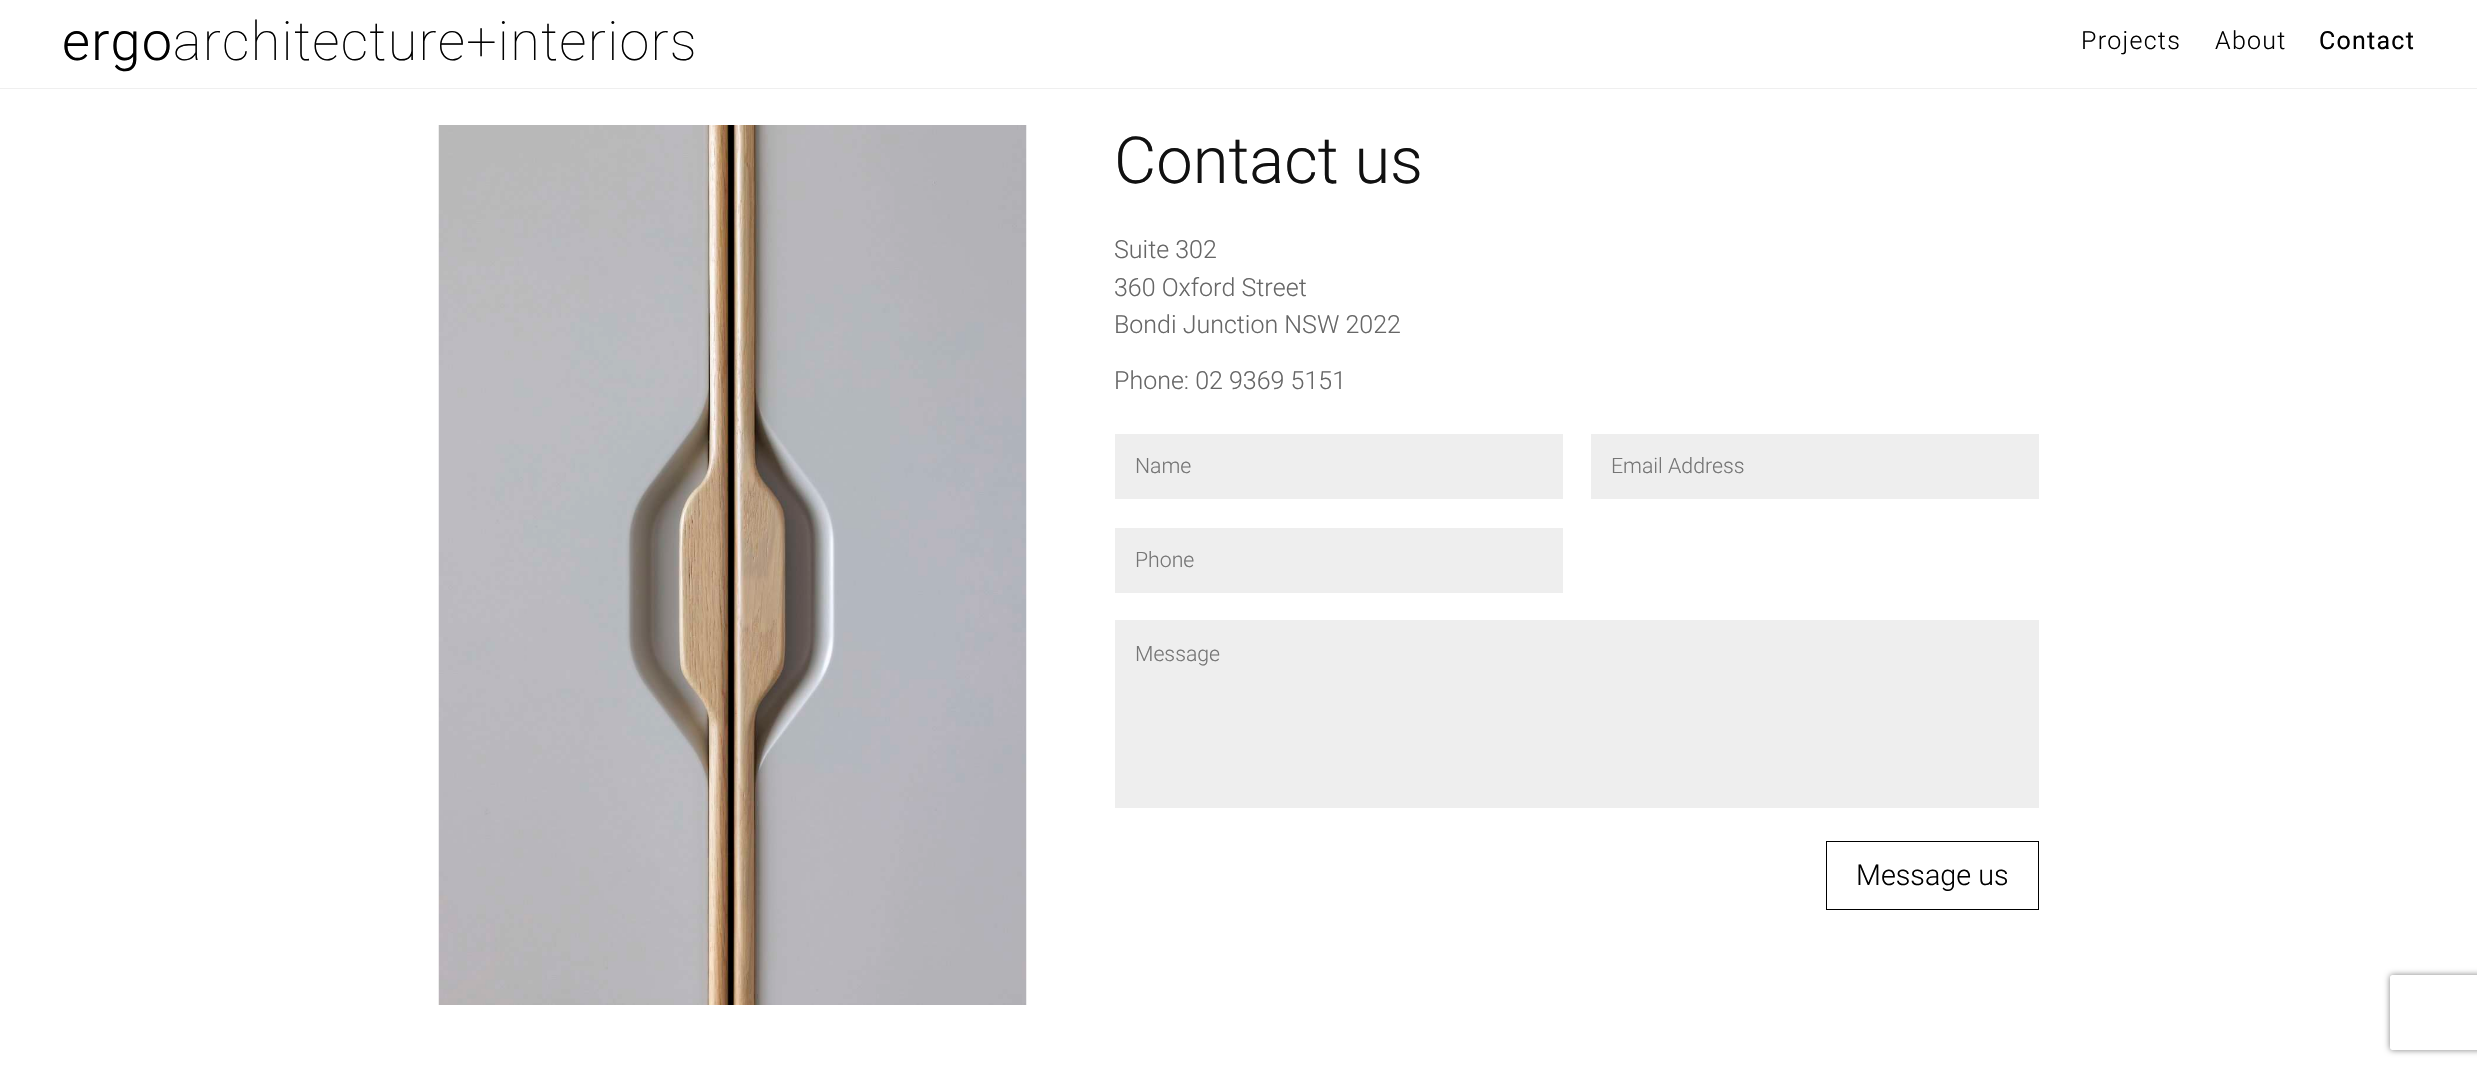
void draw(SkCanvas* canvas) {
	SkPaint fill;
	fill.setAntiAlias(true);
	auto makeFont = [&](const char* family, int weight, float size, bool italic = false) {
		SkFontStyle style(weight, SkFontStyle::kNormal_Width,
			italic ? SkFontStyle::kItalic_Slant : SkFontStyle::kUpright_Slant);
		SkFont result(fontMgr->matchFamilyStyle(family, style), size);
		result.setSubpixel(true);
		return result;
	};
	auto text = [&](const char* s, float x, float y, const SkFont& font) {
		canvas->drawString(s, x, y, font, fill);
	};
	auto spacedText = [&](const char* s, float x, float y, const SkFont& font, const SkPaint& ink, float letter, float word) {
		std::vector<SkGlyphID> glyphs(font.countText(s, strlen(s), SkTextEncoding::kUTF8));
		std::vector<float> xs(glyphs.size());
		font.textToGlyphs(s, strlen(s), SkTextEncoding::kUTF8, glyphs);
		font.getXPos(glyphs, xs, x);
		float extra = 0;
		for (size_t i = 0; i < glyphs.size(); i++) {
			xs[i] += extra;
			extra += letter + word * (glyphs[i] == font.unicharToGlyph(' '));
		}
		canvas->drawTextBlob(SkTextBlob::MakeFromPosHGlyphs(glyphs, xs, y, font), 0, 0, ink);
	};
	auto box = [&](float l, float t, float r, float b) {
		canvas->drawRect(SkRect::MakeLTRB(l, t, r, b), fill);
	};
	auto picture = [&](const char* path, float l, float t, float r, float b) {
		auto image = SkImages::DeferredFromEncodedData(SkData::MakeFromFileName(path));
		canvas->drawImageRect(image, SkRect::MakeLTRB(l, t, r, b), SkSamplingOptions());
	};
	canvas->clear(0xFFFFFFFF);
	fill.setColor(0xFFEFEFEF);
	box(0, 88, 2477, 89);
	picture("image0.png", 438, 125, 1027, 1005);
	fill.setColor(0xFFEEEEEE);
	box(1115, 434, 1563, 499);
	box(1591, 434, 2039, 499);
	box(1115, 528, 1563, 593);
	box(1115, 620, 2039, 808);
	fill.setStyle(SkPaint::kStroke_Style);
	fill.setStrokeWidth(1);
	fill.setColor(0xFF000000);
	canvas->drawRect(SkRect::MakeLTRB(1826.5f, 841.5f, 2038.5f, 909.5f), fill);
	canvas->save();
	canvas->clipPath(SkPathBuilder(SkPathFillType::kEvenOdd).moveTo(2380, 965).lineTo(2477, 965).lineTo(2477, 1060).lineTo(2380, 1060).close().moveTo(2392.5f, 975).lineTo(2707.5f, 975).cubicTo(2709, 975, 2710, 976, 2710, 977.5f).lineTo(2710, 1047.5f).cubicTo(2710, 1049, 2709, 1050, 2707.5f, 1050).lineTo(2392.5f, 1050).cubicTo(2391, 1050, 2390, 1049, 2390, 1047.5f).lineTo(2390, 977.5f).cubicTo(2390, 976, 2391, 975, 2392.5f, 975).close().detach(), true);
	fill.setStyle(SkPaint::kFill_Style);
	fill.setColor(0xFF808080);
	fill.setMaskFilter(SkMaskFilter::MakeBlur(kNormal_SkBlurStyle, 3));
	canvas->drawRoundRect(SkRect::MakeLTRB(2390, 975, 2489, 1050), 2.5f, 2.5f, fill);
	fill.setMaskFilter(nullptr);
	canvas->restore();
	auto font1 = makeFont("Roboto", 300, 54);
	fill.setColor(0xFF000000);
	spacedText("ergo", 62, 60, font1, fill, 1.25f, 0);
	auto font2 = makeFont("Roboto", 100, 54);
	spacedText("architecture+interiors", 173, 60, font2, fill, 1.25f, 0);
	auto font3 = makeFont("Roboto", 300, 25);
	spacedText("Projects", 2081, 49, font3, fill, 1.25f, 0);
	spacedText("About", 2215, 49, font3, fill, 1.25f, 0);
	auto font4 = makeFont("Roboto", 400, 25);
	spacedText("Contact", 2319, 49, font4, fill, 1.25f, 0);
	auto font5 = makeFont("Roboto", 300, 65);
	fill.setColor(0xFF111111);
	text("Contact us", 1114, 183, font5);
	fill.setColor(0xFF666666);
	text("Suite 302", 1114, 258, font3);
	text("360 Oxford Street", 1114, 296, font3);
	text("Bondi Junction NSW 2022", 1114, 333, font3);
	text("Phone: 02 9369 5151", 1114, 389, font3);
	auto font6 = makeFont("Roboto", 300, 21.25f);
	fill.setColor(0xFF757575);
	text("Name", 1135, 473, font6);
	text("Email Address", 1611, 473, font6);
	text("Phone", 1135, 567, font6);
	text("Message", 1135, 661, font6);
	auto font7 = makeFont("Roboto", 300, 28.75f);
	fill.setColor(0xFF000000);
	text("Message us", 1856, 885, font7);
}
